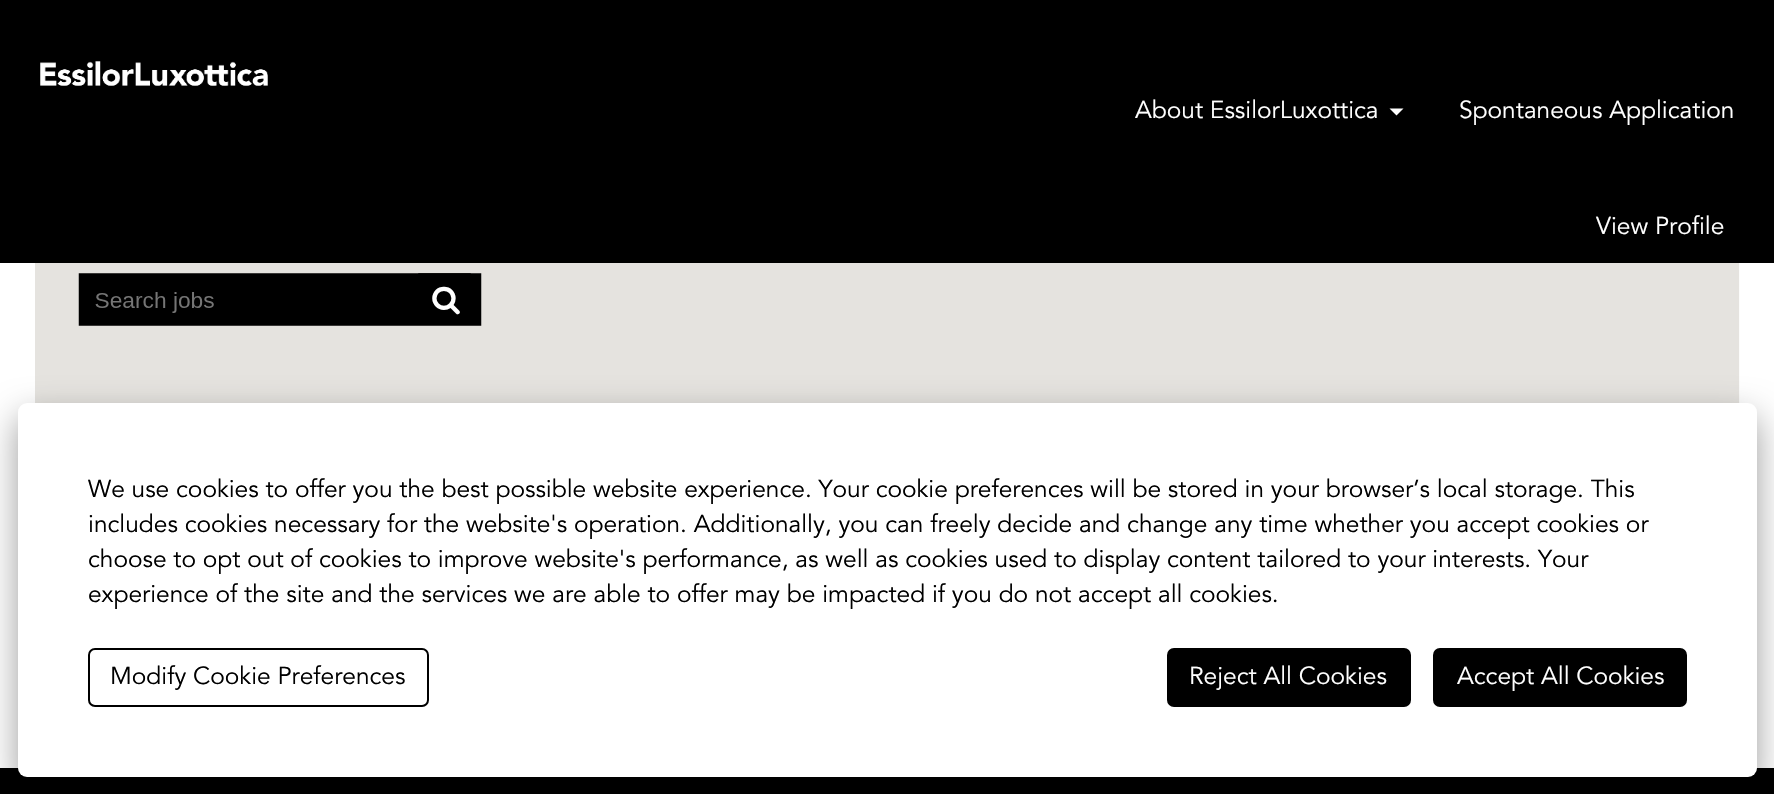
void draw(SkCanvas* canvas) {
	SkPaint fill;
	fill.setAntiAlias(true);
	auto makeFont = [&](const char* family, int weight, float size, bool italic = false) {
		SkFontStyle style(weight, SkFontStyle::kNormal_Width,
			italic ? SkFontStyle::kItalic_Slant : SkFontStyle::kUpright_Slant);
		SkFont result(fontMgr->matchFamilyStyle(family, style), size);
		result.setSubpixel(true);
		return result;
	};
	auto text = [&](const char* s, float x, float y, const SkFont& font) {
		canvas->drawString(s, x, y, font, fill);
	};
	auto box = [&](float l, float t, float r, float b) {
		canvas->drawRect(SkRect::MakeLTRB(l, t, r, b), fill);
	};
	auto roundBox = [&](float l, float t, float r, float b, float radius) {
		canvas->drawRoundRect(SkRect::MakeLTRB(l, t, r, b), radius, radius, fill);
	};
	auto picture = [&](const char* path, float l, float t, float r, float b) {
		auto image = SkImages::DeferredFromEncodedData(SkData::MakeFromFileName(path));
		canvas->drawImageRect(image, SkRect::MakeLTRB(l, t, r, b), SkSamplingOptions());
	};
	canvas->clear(0xFFFFFFFF);
	fill.setColor(0xFF000000);
	box(0, 0, 1774, 263);
	picture("image0.png", 40, 61, 268, 86);
	fill.setColor(0xFFFFFFFF);
	canvas->drawPath(SkPathBuilder().moveTo(1389.5f, 108.5f).lineTo(1403.5f, 108.5f).lineTo(1396.5f, 115.5f).close().detach(), fill);
	picture("image1.png", 35, 263, 1740, 403);
	fill.setColor(0xFF000000);
	box(0, 768, 1774, 794);
	fill.setColor(0x63000000);
	fill.setMaskFilter(SkMaskFilter::MakeBlur(kNormal_SkBlurStyle, 17.5f));
	canvas->drawRoundRect(SkRect::MakeLTRB(18, 417, 1757, 791), 9, 9, fill);
	fill.setMaskFilter(nullptr);
	fill.setColor(0xFFFFFFFF);
	roundBox(18, 403, 1757, 777, 9);
	fill.setStyle(SkPaint::kStroke_Style);
	fill.setStrokeWidth(2);
	fill.setColor(0xFF000000);
	canvas->drawRoundRect(SkRect::MakeLTRB(89, 649, 428, 706), 6, 6, fill);
	fill.setStyle(SkPaint::kFill_Style);
	roundBox(1167, 648, 1411, 707, 7);
	roundBox(1433, 648, 1687, 707, 7);
	auto font1 = makeFont("Avenir", 400, 24.5f);
	fill.setColor(0xFFFFFFFF);
	text("About EssilorLuxottica", 1135, 118, font1);
	text("Spontaneous Application", 1459, 118, font1);
	text("View Profile", 1596, 234, font1);
	fill.setColor(0xFF000000);
	text("We use cookies to offer you the best possible website experience. Your cookie preferences will be stored in your browser’s local storage. This", 88, 497, font1);
	text("includes cookies necessary for the website's operation. Additionally, you can freely decide and change any time whether you accept cookies or", 88, 532, font1);
	text("choose to opt out of cookies to improve website's performance, as well as cookies used to display content tailored to your interests. Your", 88, 567, font1);
	text("experience of the site and the services we are able to offer may be impacted if you do not accept all cookies.", 88, 602, font1);
	text("Modify Cookie Preferences", 110, 684, font1);
	fill.setColor(0xFFFFFFFF);
	text("Reject All Cookies", 1189, 684, font1);
	text("Accept All Cookies", 1457, 684, font1);
}
